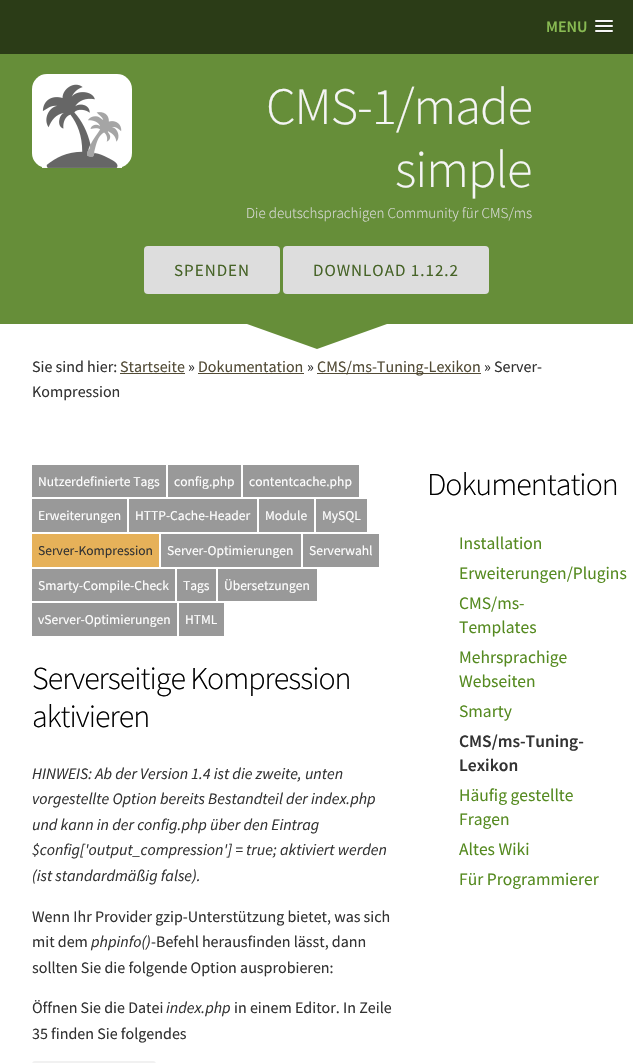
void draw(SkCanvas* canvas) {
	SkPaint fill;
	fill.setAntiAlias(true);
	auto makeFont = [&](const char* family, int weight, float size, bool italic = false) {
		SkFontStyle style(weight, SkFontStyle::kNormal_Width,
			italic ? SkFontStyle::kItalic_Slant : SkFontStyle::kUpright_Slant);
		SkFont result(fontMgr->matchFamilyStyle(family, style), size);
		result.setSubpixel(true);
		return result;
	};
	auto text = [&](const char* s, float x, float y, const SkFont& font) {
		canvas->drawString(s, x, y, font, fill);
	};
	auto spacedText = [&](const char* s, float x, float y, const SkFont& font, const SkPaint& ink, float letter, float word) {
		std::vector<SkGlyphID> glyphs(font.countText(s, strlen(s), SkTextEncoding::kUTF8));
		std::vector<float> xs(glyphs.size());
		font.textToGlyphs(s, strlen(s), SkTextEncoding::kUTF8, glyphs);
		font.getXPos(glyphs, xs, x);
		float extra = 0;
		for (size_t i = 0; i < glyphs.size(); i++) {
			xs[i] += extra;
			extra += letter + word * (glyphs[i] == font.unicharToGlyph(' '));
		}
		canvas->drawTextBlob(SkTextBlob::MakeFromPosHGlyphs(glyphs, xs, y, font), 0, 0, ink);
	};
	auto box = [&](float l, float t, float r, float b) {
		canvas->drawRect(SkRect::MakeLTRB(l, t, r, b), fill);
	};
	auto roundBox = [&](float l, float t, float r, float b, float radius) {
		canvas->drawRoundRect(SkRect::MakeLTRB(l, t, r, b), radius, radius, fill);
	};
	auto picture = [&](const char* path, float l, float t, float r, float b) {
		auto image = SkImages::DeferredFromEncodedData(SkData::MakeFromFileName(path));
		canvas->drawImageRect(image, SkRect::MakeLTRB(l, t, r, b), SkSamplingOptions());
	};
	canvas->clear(0xFF668E39);
	fill.setColor(0xFF2B3C17);
	box(0, 0, 633, 54);
	fill.setColor(0xFF202D11);
	canvas->drawPath(SkPathBuilder().moveTo(595, 21.5f).cubicTo(594, 23.5f, 598.5f, 23, 598.5f, 23).lineTo(609.5f, 23).cubicTo(609.5f, 23, 614, 23.5f, 613, 21.5f).cubicTo(612, 22.5f, 605.5f, 22, 604, 22).cubicTo(602.5f, 22, 596, 22.5f, 595, 21.5f).close().detach(), fill);
	fill.setColor(0xFFF5F5F5);
	roundBox(595, 20, 613, 22, 1);
	fill.setColor(0xFF202D11);
	canvas->drawPath(SkPathBuilder().moveTo(595, 26.5f).cubicTo(594, 28.5f, 598.5f, 28, 598.5f, 28).lineTo(609.5f, 28).cubicTo(609.5f, 28, 614, 28.5f, 613, 26.5f).cubicTo(612, 27.5f, 605.5f, 27, 604, 27).cubicTo(602.5f, 27, 596, 27.5f, 595, 26.5f).close().detach(), fill);
	fill.setColor(0xFFF5F5F5);
	roundBox(595, 25, 613, 27, 1);
	fill.setColor(0xFF202D11);
	canvas->drawPath(SkPathBuilder().moveTo(595, 31.5f).cubicTo(594, 33.5f, 598.5f, 33, 598.5f, 33).lineTo(609.5f, 33).cubicTo(609.5f, 33, 614, 33.5f, 613, 31.5f).cubicTo(612, 32.5f, 605.5f, 32, 604, 32).cubicTo(602.5f, 32, 596, 32.5f, 595, 31.5f).close().detach(), fill);
	fill.setColor(0xFFF5F5F5);
	roundBox(595, 30, 613, 32, 1);
	fill.setColor(0xFFFFFFFF);
	roundBox(32, 74, 132, 168, 15);
	picture("image0.png", 42, 84, 122, 168);
	fill.setColor(0xFFDDDDDD);
	roundBox(144, 246, 280, 294, 4);
	roundBox(283, 246, 489, 294, 4);
	fill.setColor(0xFFFFFFFF);
	box(0, 324, 633, 1063);
	fill.setColor(0xFF668E39);
	canvas->drawPath(SkPathBuilder().moveTo(247, 324).lineTo(387, 324).lineTo(317, 349).close().detach(), fill);
	fill.setColor(0xFF524B36);
	box(120, 373, 185, 374);
	box(198, 373, 304, 374);
	box(317, 373, 481, 374);
	fill.setColor(0xFF999999);
	box(32, 465, 166, 497);
	box(168, 465, 241, 497);
	box(243, 465, 359, 497);
	box(32, 499, 127, 532);
	box(129, 499, 257, 532);
	box(259, 499, 314, 532);
	box(316, 499, 367, 532);
	fill.setColor(0xFFE6B159);
	box(32, 534, 159, 567);
	fill.setColor(0xFF999999);
	box(161, 534, 301, 567);
	box(303, 534, 379, 567);
	box(32, 569, 175, 601);
	box(177, 569, 216, 601);
	box(218, 569, 317, 601);
	box(32, 603, 177, 636);
	box(179, 603, 224, 636);
	fill.setColor(0xFFF1F1F1);
	roundBox(32, 1061, 156, 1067, 4);
	auto font1 = makeFont("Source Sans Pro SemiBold", 600, 16);
	fill.setColor(0xFF88BA52);
	text("MENU", 546, 32, font1);
	auto font2 = makeFont("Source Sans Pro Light", 300, 52.5f);
	fill.setColor(0xFFF5F5F5);
	spacedText("CMS-1/made", 266, 124, font2, fill, -1, 0);
	spacedText("simple", 395, 187, font2, fill, -1, 0);
	auto font3 = makeFont("Source Sans Pro Light", 300, 15);
	fill.setColor(0xFFDDDDDD);
	text("Die deutschsprachigen Community für CMS/ms", 246, 218, font3);
	auto font4 = makeFont("Source Sans Pro", 400, 17);
	fill.setColor(0xFF466327);
	spacedText("SPENDEN", 174, 276, font4, fill, 1, 0);
	spacedText("DOWNLOAD 1.12.2", 313, 276, font4, fill, 1, 0);
	auto font5 = makeFont("Source Sans Pro", 400, 16);
	fill.setColor(0xFF333333);
	text("Sie sind hier:", 32, 372, font5);
	fill.setColor(0xFF524B36);
	text("Startseite", 120, 372, font5);
	fill.setColor(0xFF333333);
	text("»", 188, 372, font5);
	fill.setColor(0xFF524B36);
	text("Dokumentation", 198, 372, font5);
	fill.setColor(0xFF333333);
	text("»", 307, 372, font5);
	fill.setColor(0xFF524B36);
	text("CMS/ms-Tuning-Lexikon", 317, 372, font5);
	fill.setColor(0xFF333333);
	text("» Server-", 484, 372, font5);
	text("Kompression", 32, 397, font5);
	auto font6 = makeFont("Source Sans Pro", 400, 13.5f);
	fill.setColor(0xFFFFFFFF);
	text("Nutzerdefinierte Tags", 38, 486, font6);
	text("config.php", 174, 486, font6);
	text("contentcache.php", 249, 486, font6);
	text("Erweiterungen", 38, 520, font6);
	text("HTTP-Cache-Header", 135, 520, font6);
	text("Module", 265, 520, font6);
	text("MySQL", 322, 520, font6);
	fill.setColor(0xFF333333);
	text("Server-Kompression", 38, 555, font6);
	fill.setColor(0xFFFFFFFF);
	text("Server-Optimierungen", 167, 555, font6);
	text("Serverwahl", 309, 555, font6);
	text("Smarty-Compile-Check", 38, 590, font6);
	text("Tags", 183, 590, font6);
	text("Übersetzungen", 224, 590, font6);
	text("vServer-Optimierungen", 38, 624, font6);
	text("HTML", 185, 624, font6);
	auto font7 = makeFont("Source Sans Pro Light", 300, 32);
	fill.setColor(0xFF000000);
	spacedText("Serverseitige Kompression", 32, 689, font7, fill, -1, 0);
	spacedText("aktivieren", 32, 727, font7, fill, -1, 0);
	auto font8 = makeFont("Source Sans Pro", 400, 16, true);
	fill.setColor(0xFF333333);
	text("HINWEIS: Ab der Version 1.4 ist die zweite, unten", 32, 779, font8);
	text("vorgestellte Option bereits Bestandteil der index.php", 32, 804, font8);
	text("und kann in der config.php über den Eintrag", 32, 830, font8);
	text("$config['output_compression'] = true; aktiviert werden", 32, 855, font8);
	text("(ist standardmäßig false).", 32, 881, font8);
	text("Wenn Ihr Provider gzip-Unterstützung bietet, was sich", 32, 922, font5);
	text("mit dem", 32, 947, font5);
	text("phpinfo()", 91, 947, font8);
	text("-Befehl herausfinden lässt, dann", 151, 947, font5);
	text("sollten Sie die folgende Option ausprobieren:", 32, 973, font5);
	text("Öffnen Sie die Datei", 32, 1013, font5);
	text("index.php", 166, 1013, font8);
	text("in einem Editor. In Zeile", 234, 1013, font5);
	text("35 finden Sie folgendes", 32, 1039, font5);
	fill.setColor(0xFF000000);
	spacedText("Dokumentation", 427, 495, font7, fill, -1, 0);
	auto font9 = makeFont("Source Sans Pro", 400, 17.5f);
	fill.setColor(0xFF558A20);
	text("Installation", 459, 549, font9);
	text("Erweiterungen/Plugins", 459, 579, font9);
	text("CMS/ms-", 459, 609, font9);
	text("Templates", 459, 633, font9);
	text("Mehrsprachige", 459, 663, font9);
	text("Webseiten", 459, 687, font9);
	text("Smarty", 459, 717, font9);
	auto font10 = makeFont("Source Sans Pro SemiBold", 600, 17.5f);
	fill.setColor(0xFF333333);
	text("CMS/ms-Tuning-", 459, 747, font10);
	text("Lexikon", 459, 771, font10);
	fill.setColor(0xFF558A20);
	text("Häufig gestellte", 459, 801, font9);
	text("Fragen", 459, 825, font9);
	text("Altes Wiki", 459, 855, font9);
	text("Für Programmierer", 459, 885, font9);
}
